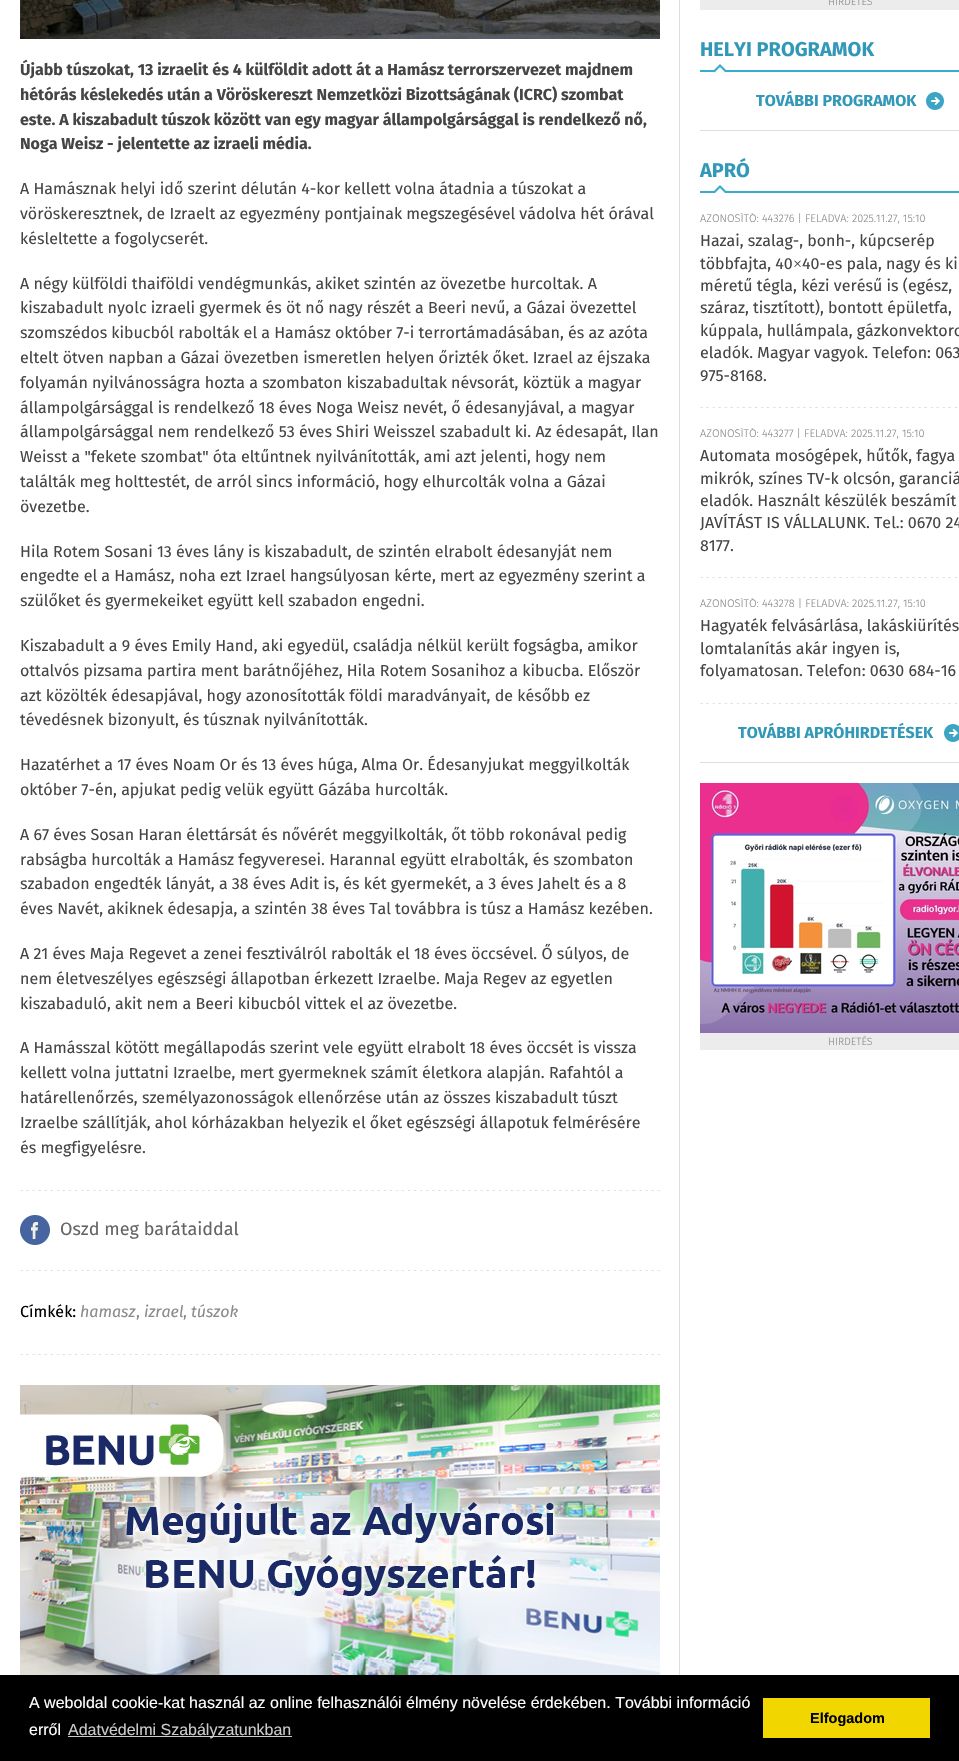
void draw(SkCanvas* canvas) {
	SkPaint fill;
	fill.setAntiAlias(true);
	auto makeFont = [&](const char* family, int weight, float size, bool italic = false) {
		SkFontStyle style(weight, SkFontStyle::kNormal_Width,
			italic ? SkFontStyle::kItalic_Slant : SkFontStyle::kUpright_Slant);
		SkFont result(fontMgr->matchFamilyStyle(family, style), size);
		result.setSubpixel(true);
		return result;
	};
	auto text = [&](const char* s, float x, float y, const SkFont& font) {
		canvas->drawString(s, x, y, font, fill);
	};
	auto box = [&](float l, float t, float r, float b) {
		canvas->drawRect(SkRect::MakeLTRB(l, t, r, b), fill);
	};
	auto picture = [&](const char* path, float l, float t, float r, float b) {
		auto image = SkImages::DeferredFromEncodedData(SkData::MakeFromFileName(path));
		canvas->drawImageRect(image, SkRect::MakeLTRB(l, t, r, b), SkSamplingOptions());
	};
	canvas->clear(0xFFFFFFFF);
	fill.setColor(0xFFDDDDDD);
	box(679, 0, 680, 1675);
	picture("image0.png", 20, 0, 660, 39);
	picture("image1.png", 20, 1190, 660, 1191);
	picture("image1.png", 20, 1270, 660, 1271);
	picture("image2.png", 20, 1215, 50, 1245);
	picture("image1.png", 20, 1354, 660, 1355);
	picture("image3.png", 20, 1385, 660, 1675);
	fill.setColor(0xFFECECEC);
	box(700, 0, 959, 10);
	fill.setColor(0xFF38ACD0);
	box(700, 70, 959, 72);
	canvas->drawPath(SkPathBuilder().moveTo(728, 72).lineTo(712, 72).lineTo(720, 64).close().detach(), fill);
	fill.setColor(0xFFFFFFFF);
	canvas->drawPath(SkPathBuilder().moveTo(725, 72).lineTo(715, 72).lineTo(720, 67).close().detach(), fill);
	fill.setColor(0xFFDDDDDD);
	box(700, 130, 959, 131);
	picture("image4.png", 926, 92, 944, 110);
	fill.setColor(0xFF38ACD0);
	box(700, 191, 959, 193);
	canvas->drawPath(SkPathBuilder().moveTo(728, 193).lineTo(712, 193).lineTo(720, 185).close().detach(), fill);
	fill.setColor(0xFFFFFFFF);
	canvas->drawPath(SkPathBuilder().moveTo(725, 193).lineTo(715, 193).lineTo(720, 188).close().detach(), fill);
	picture("image5.png", 700, 407, 958, 408);
	picture("image5.png", 700, 577, 958, 578);
	picture("image5.png", 700, 703, 958, 704);
	fill.setColor(0xFFDDDDDD);
	box(700, 762, 959, 763);
	picture("image6.png", 944, 724, 959, 742);
	picture("image7.png", 700, 783, 959, 1033);
	fill.setColor(0xFFECECEC);
	box(700, 1033, 959, 1050);
	fill.setColor(0xFF000000);
	box(0, 1675, 959, 1761);
	fill.setColor(0xFFCCCCCC);
	box(68, 1736, 292, 1737);
	fill.setColor(0xFFF1D600);
	box(763, 1698, 930, 1738);
	auto font1 = makeFont("Fira Sans", 700, 16);
	fill.setColor(0xFF454545);
	text("Újabb túszokat, 13 izraelit és 4 külföldit adott át a Hamász terrorszervezet majdnem", 20, 75, font1);
	text("hétórás késlekedés után a Vöröskereszt Nemzetközi Bizottságának (ICRC) szombat", 20, 100, font1);
	text("este. A kiszabadult túszok között van egy magyar állampolgársággal is rendelkező nő,", 20, 125, font1);
	text("Noga Weisz - jelentette az izraeli média.", 20, 149, font1);
	auto font2 = makeFont("Fira Sans", 400, 16);
	text("A Hamásznak helyi idő szerint délután 4-kor kellett volna átadnia a túszokat a", 20, 194, font2);
	text("vöröskeresztnek, de Izraelt az egyezmény pontjainak megszegésével vádolva hét órával", 20, 219, font2);
	text("késleltette a fogolycserét.", 20, 244, font2);
	text("A négy külföldi thaiföldi vendégmunkás, akiket szintén az övezetbe hurcoltak. A", 20, 289, font2);
	text("kiszabadult nyolc izraeli gyermek és öt nő nagy részét a Beeri nevű, a Gázai övezettel", 20, 313, font2);
	text("szomszédos kibucból rabolták el a Hamász október 7-i terrortámadásában, és az azóta", 20, 338, font2);
	text("eltelt ötven napban a Gázai övezetben ismeretlen helyen őrizték őket. Izrael az éjszaka", 20, 363, font2);
	text("folyamán nyilvánosságra hozta a szombaton kiszabadultak névsorát, köztük a magyar", 20, 388, font2);
	text("állampolgársággal is rendelkező 18 éves Noga Weisz nevét, ő édesanyjával, a magyar", 20, 413, font2);
	text("állampolgársággal nem rendelkező 53 éves Shiri Weisszel szabadult ki. Az édesapát, Ilan", 20, 437, font2);
	text("Weisst a \"fekete szombat\" óta eltűntnek nyilvánították, ami azt jelenti, hogy nem", 20, 462, font2);
	text("találták meg holttestét, de arról sincs információ, hogy elhurcolták volna a Gázai", 20, 487, font2);
	text("övezetbe.", 20, 512, font2);
	text("Hila Rotem Sosani 13 éves lány is kiszabadult, de szintén elrabolt édesanyját nem", 20, 557, font2);
	text("engedte el a Hamász, noha ezt Izrael hangsúlyosan kérte, mert az egyezmény szerint a", 20, 581, font2);
	text("szülőket és gyermekeiket együtt kell szabadon engedni.", 20, 606, font2);
	text("Kiszabadult a 9 éves Emily Hand, aki egyedül, családja nélkül került fogságba, amikor", 20, 651, font2);
	text("ottalvós pizsama partira ment barátnőjéhez, Hila Rotem Sosanihoz a kibucba. Először", 20, 676, font2);
	text("azt közölték édesapjával, hogy azonosították földi maradványait, de később ez", 20, 701, font2);
	text("tévedésnek bizonyult, és túsznak nyilvánították.", 20, 725, font2);
	text("Hazatérhet a 17 éves Noam Or és 13 éves húga, Alma Or. Édesanyjukat meggyilkolták", 20, 770, font2);
	text("október 7-én, apjukat pedig velük együtt Gázába hurcolták.", 20, 795, font2);
	text("A 67 éves Sosan Haran élettársát és nővérét meggyilkolták, őt több rokonával pedig", 20, 840, font2);
	text("rabságba hurcolták a Hamász fegyveresei. Harannal együtt elrabolták, és szombaton", 20, 865, font2);
	text("szabadon engedték lányát, a 38 éves Adit is, és két gyermekét, a 3 éves Jahelt és a 8", 20, 889, font2);
	text("éves Navét, akiknek édesapja, a szintén 38 éves Tal továbbra is túsz a Hamász kezében.", 20, 914, font2);
	text("A 21 éves Maja Regevet a zenei fesztiválról rabolták el 18 éves öccsével. Ő súlyos, de", 20, 959, font2);
	text("nem életveszélyes egészségi állapotban érkezett Izraelbe. Maja Regev az egyetlen", 20, 984, font2);
	text("kiszabaduló, akit nem a Beeri kibucból vittek el az övezetbe.", 20, 1009, font2);
	text("A Hamásszal kötött megállapodás szerint vele együtt elrabolt 18 éves öccsét is vissza", 20, 1053, font2);
	text("kellett volna juttatni Izraelbe, mert gyermeknek számít életkora alapján. Rafahtól a", 20, 1078, font2);
	text("határellenőrzés, személyazonosságok ellenőrzése után az összes kiszabadult túszt", 20, 1103, font2);
	text("Izraelbe szállítják, ahol kórházakban helyezik el őket egészségi állapotuk felmérésére", 20, 1128, font2);
	text("és megfigyelésre.", 20, 1153, font2);
	auto font3 = makeFont("Fira Sans", 400, 18);
	fill.setColor(0xFF656565);
	text("Oszd meg barátaiddal", 60, 1235, font3);
	fill.setColor(0xFF000000);
	text("Címkék:", 20, 1317, font2);
	auto font4 = makeFont("Fira Sans", 400, 16, true);
	fill.setColor(0xFF8B8B8B);
	text("hamasz", 80, 1317, font4);
	text(",", 136, 1317, font2);
	text("izrael", 144, 1317, font4);
	text(",", 183, 1317, font2);
	text("túszok", 191, 1317, font4);
	auto font5 = makeFont("Fira Sans", 300, 10.5f);
	text("HIRDETÉS", 828, 5, font5);
	auto font6 = makeFont("Fira Sans", 700, 20);
	fill.setColor(0xFF3198B8);
	text("HELYI PROGRAMOK", 700, 56, font6);
	text("TOVÁBBI PROGRAMOK", 756, 106, font1);
	text("APRÓ", 700, 177, font6);
	canvas->save();
	canvas->clipRect(SkRect::MakeLTRB(700, 213, 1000, 408));
	auto font7 = makeFont("Fira Sans", 300, 11);
	fill.setColor(0xFF8B8B8B);
	text("AZONOSÍTÓ: 443276 | FELADVA: 2025.11.27, 15:10", 700, 222, font7);
	canvas->restore();
	fill.setColor(0xFF454545);
	text("Hazai, szalag-, bonh-, kúpcserép", 700, 246, font2);
	text("többfajta, 40", 700, 269, font2);
	auto font8 = makeFont("Liberation Serif", 400, 16);
	text("×", 793, 269, font8);
	text("40-es pala, nagy és ki", 802, 269, font2);
	text("méretű tégla, kézi verésű is (egész,", 700, 291, font2);
	text("száraz, tisztított), bontott épületfa,", 700, 313, font2);
	text("kúppala, hullámpala, gázkonvektoro", 700, 336, font2);
	text("eladók. Magyar vagyok. Telefon: 063", 700, 358, font2);
	text("975-8168.", 700, 381, font2);
	canvas->save();
	canvas->clipRect(SkRect::MakeLTRB(700, 428, 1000, 578));
	fill.setColor(0xFF8B8B8B);
	text("AZONOSÍTÓ: 443277 | FELADVA: 2025.11.27, 15:10", 700, 437, font7);
	canvas->restore();
	fill.setColor(0xFF454545);
	text("Automata mosógépek, hűtők, fagya", 700, 461, font2);
	text("mikrók, színes TV-k olcsón, garanciá", 700, 484, font2);
	text("eladók. Használt készülék beszámít", 700, 506, font2);
	text("JAVÍTÁST IS VÁLLALUNK. Tel.: 0670 24", 700, 528, font2);
	text("8177.", 700, 551, font2);
	canvas->save();
	canvas->clipRect(SkRect::MakeLTRB(700, 598, 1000, 704));
	fill.setColor(0xFF8B8B8B);
	text("AZONOSÍTÓ: 443278 | FELADVA: 2025.11.27, 15:10", 700, 607, font7);
	canvas->restore();
	fill.setColor(0xFF454545);
	text("Hagyaték felvásárlása, lakáskiürítés", 700, 631, font2);
	text("lomtalanítás akár ingyen is,", 700, 654, font2);
	text("folyamatosan. Telefon: 0630 684-16", 700, 676, font2);
	fill.setColor(0xFF3198B8);
	text("TOVÁBBI APRÓHIRDETÉSEK", 738, 738, font1);
	fill.setColor(0xFF8B8B8B);
	text("HIRDETÉS", 828, 1045, font5);
	auto font9 = makeFont("Liberation Sans", 400, 16);
	fill.setColor(0xFFFFFFFF);
	text("A weboldal cookie-kat használ az online felhasználói élmény növelése érdekében. További információ", 29, 1708, font9);
	text("erről", 29, 1735, font9);
	fill.setColor(0xFFCCCCCC);
	text("Adatvédelmi Szabályzatunkban", 68, 1735, font9);
	auto font10 = makeFont("Liberation Sans", 700, 14.5f);
	fill.setColor(0xFF000000);
	text("Elfogadom", 810, 1723, font10);
}
